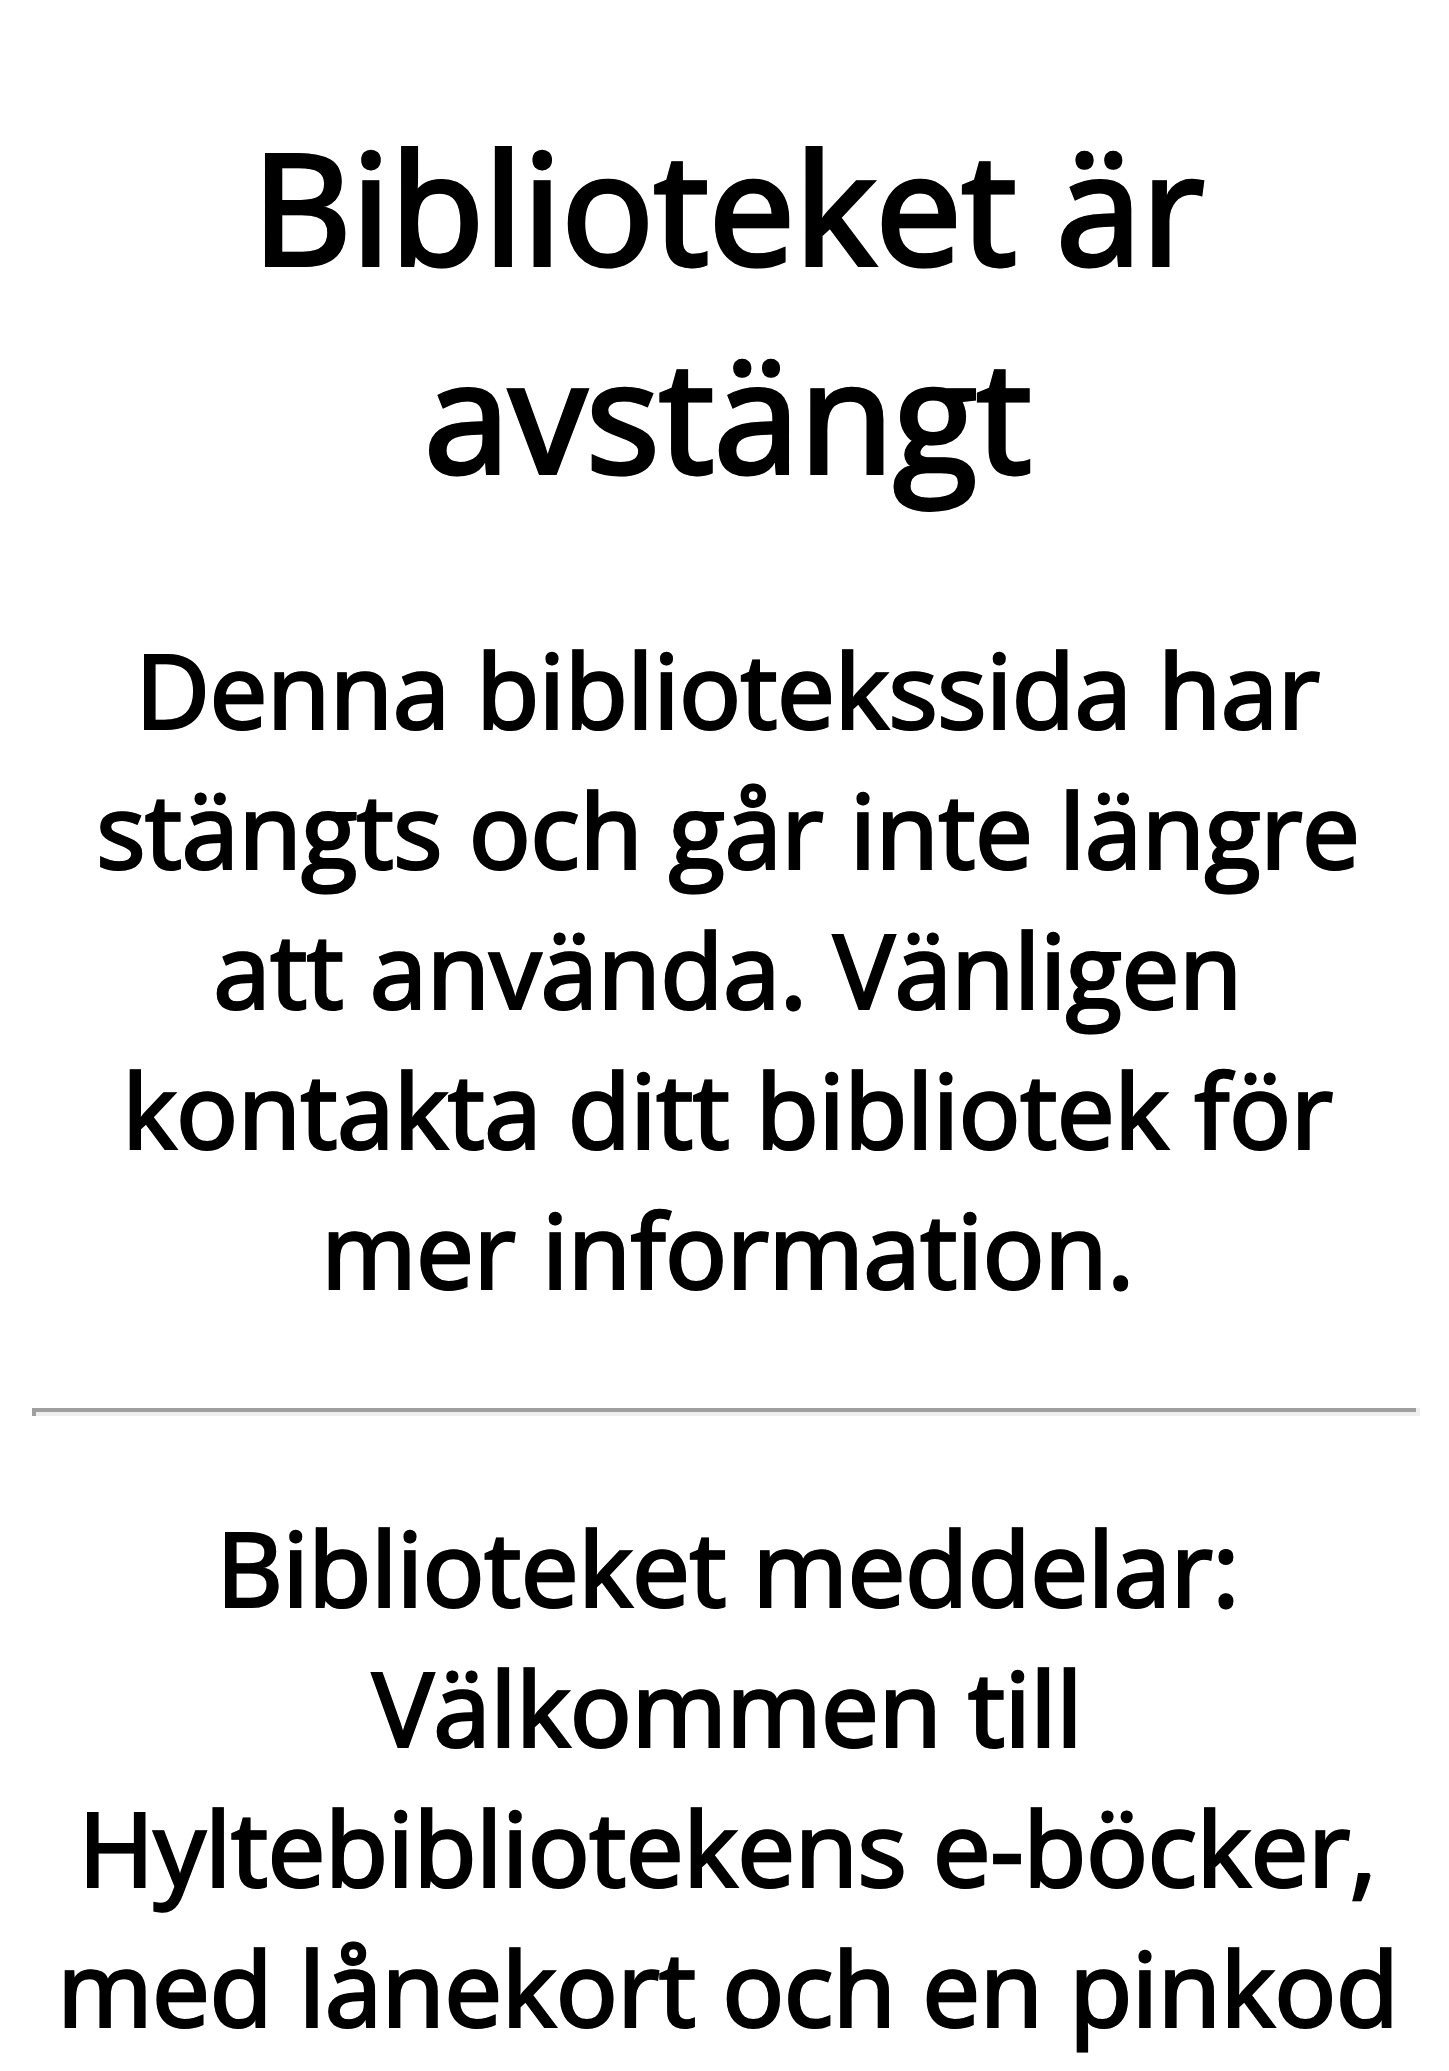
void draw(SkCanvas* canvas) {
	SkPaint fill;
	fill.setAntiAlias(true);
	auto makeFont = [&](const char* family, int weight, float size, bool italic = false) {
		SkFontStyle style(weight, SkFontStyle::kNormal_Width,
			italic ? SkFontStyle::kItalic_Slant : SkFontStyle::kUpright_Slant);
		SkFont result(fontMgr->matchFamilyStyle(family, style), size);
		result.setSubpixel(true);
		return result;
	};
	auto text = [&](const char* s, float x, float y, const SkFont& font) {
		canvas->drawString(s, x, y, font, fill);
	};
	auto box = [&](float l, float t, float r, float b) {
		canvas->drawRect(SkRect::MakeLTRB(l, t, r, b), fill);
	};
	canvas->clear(0xFFFFFFFF);
	fill.setColor(0xFF9F9F9F);
	box(32, 1408, 1420, 1412);
	fill.setColor(0xFFEEEEEE);
	box(1416, 1408, 1420, 1416);
	box(32, 1412, 1420, 1416);
	fill.setColor(0xFF9F9F9F);
	box(32, 1408, 36, 1416);
	auto font1 = makeFont("Open Sans", 700, 153.5f);
	fill.setColor(0xFF000000);
	text("Biblioteket är", 250, 267, font1);
	text("avstängt", 422, 475, font1);
	auto font2 = makeFont("Open Sans", 700, 102.4f);
	text("Denna bibliotekssida har", 134, 730, font2);
	text("stängts och går inte längre", 95, 870, font2);
	text("att använda. Vänligen", 212, 1010, font2);
	text("kontakta ditt bibliotek för", 121, 1150, font2);
	text("mer information.", 320, 1290, font2);
	text("Biblioteket meddelar:", 215, 1608, font2);
	text("Välkommen till", 371, 1748, font2);
	text("Hyltebibliotekens e-böcker,", 77, 1888, font2);
	text("med lånekort och en pinkod", 56, 2028, font2);
}
